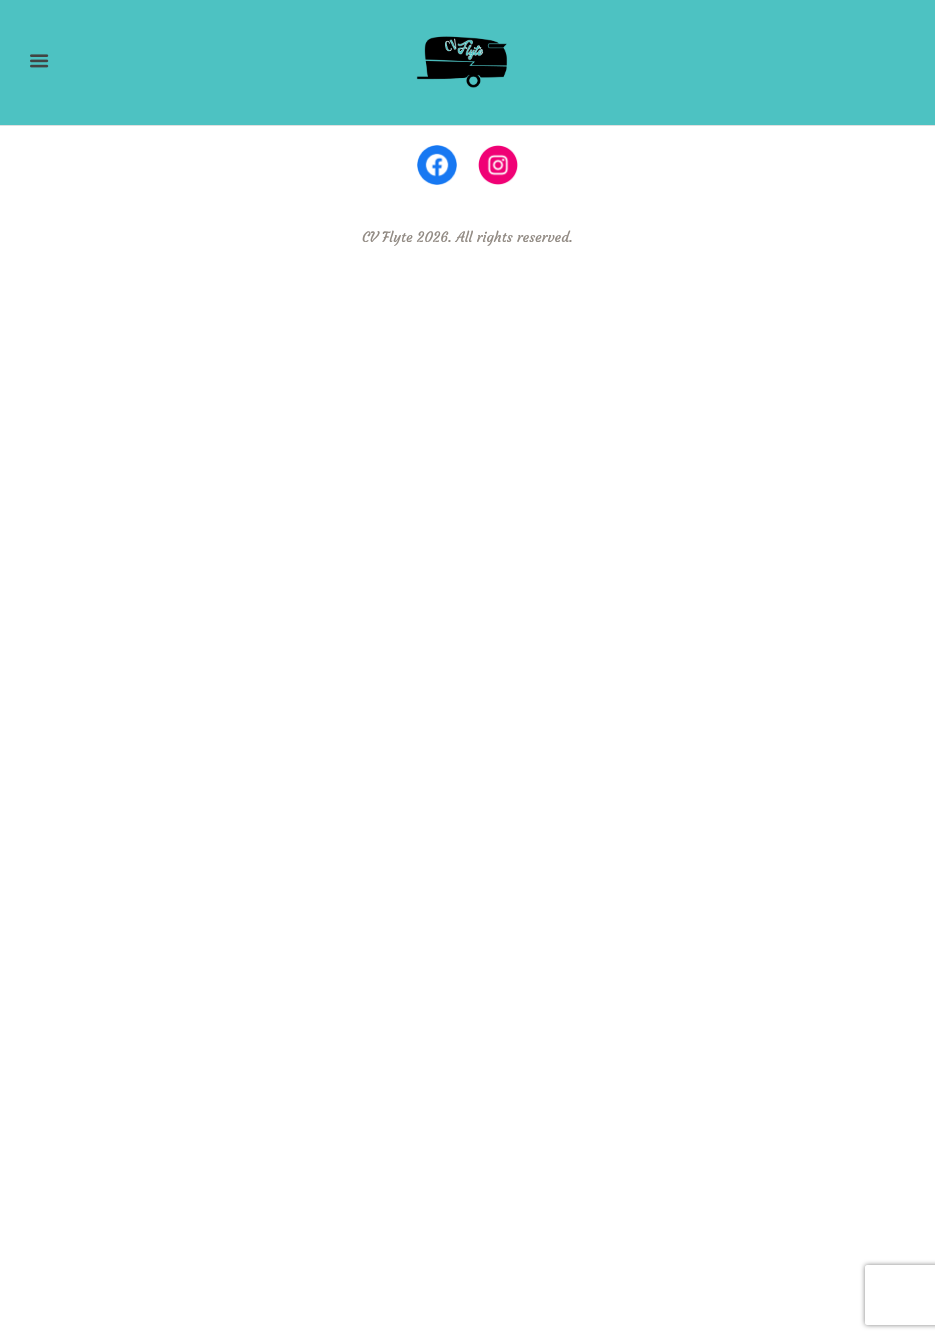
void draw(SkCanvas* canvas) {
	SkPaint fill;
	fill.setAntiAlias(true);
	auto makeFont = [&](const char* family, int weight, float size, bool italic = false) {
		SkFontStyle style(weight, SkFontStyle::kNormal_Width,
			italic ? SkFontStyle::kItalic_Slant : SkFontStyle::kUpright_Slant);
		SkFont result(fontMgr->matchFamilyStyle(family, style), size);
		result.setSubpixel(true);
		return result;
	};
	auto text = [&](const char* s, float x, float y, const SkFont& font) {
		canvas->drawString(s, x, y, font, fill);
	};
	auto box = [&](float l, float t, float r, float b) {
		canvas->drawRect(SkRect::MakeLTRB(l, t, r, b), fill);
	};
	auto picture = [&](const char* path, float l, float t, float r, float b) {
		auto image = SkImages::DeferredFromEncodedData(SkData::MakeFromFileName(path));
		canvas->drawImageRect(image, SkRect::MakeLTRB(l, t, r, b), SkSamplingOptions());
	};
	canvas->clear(0xFFFFFFFF);
	fill.setColor(0xFF4DC2C2);
	box(0, 0, 935, 125);
	picture("image0.png", 30, 54, 49, 68);
	picture("image1.png", 416, 36, 508, 88);
	fill.setColor(0xFFDFE0E0);
	box(0, 125, 935, 126);
	picture("image2.png", 417, 145, 457, 185);
	picture("image3.png", 478, 145, 518, 185);
	canvas->save();
	canvas->clipPath(SkPathBuilder(SkPathFillType::kEvenOdd).moveTo(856, 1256).lineTo(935, 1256).lineTo(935, 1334).lineTo(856, 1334).close().moveTo(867, 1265).lineTo(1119, 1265).cubicTo(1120, 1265, 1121, 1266, 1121, 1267).lineTo(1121, 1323).cubicTo(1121, 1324, 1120, 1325, 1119, 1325).lineTo(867, 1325).cubicTo(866, 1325, 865, 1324, 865, 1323).lineTo(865, 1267).cubicTo(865, 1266, 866, 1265, 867, 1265).close().detach(), true);
	fill.setColor(0xFF808080);
	fill.setMaskFilter(SkMaskFilter::MakeBlur(kNormal_SkBlurStyle, 2.5f));
	canvas->drawRoundRect(SkRect::MakeLTRB(865, 1265, 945, 1325), 2, 2, fill);
	fill.setMaskFilter(nullptr);
	canvas->restore();
	auto font1 = makeFont("Courgette", 400, 14);
	fill.setColor(0xFF928B84);
	text("CV Flyte 2026. All rights reserved.", 362, 242, font1);
}
